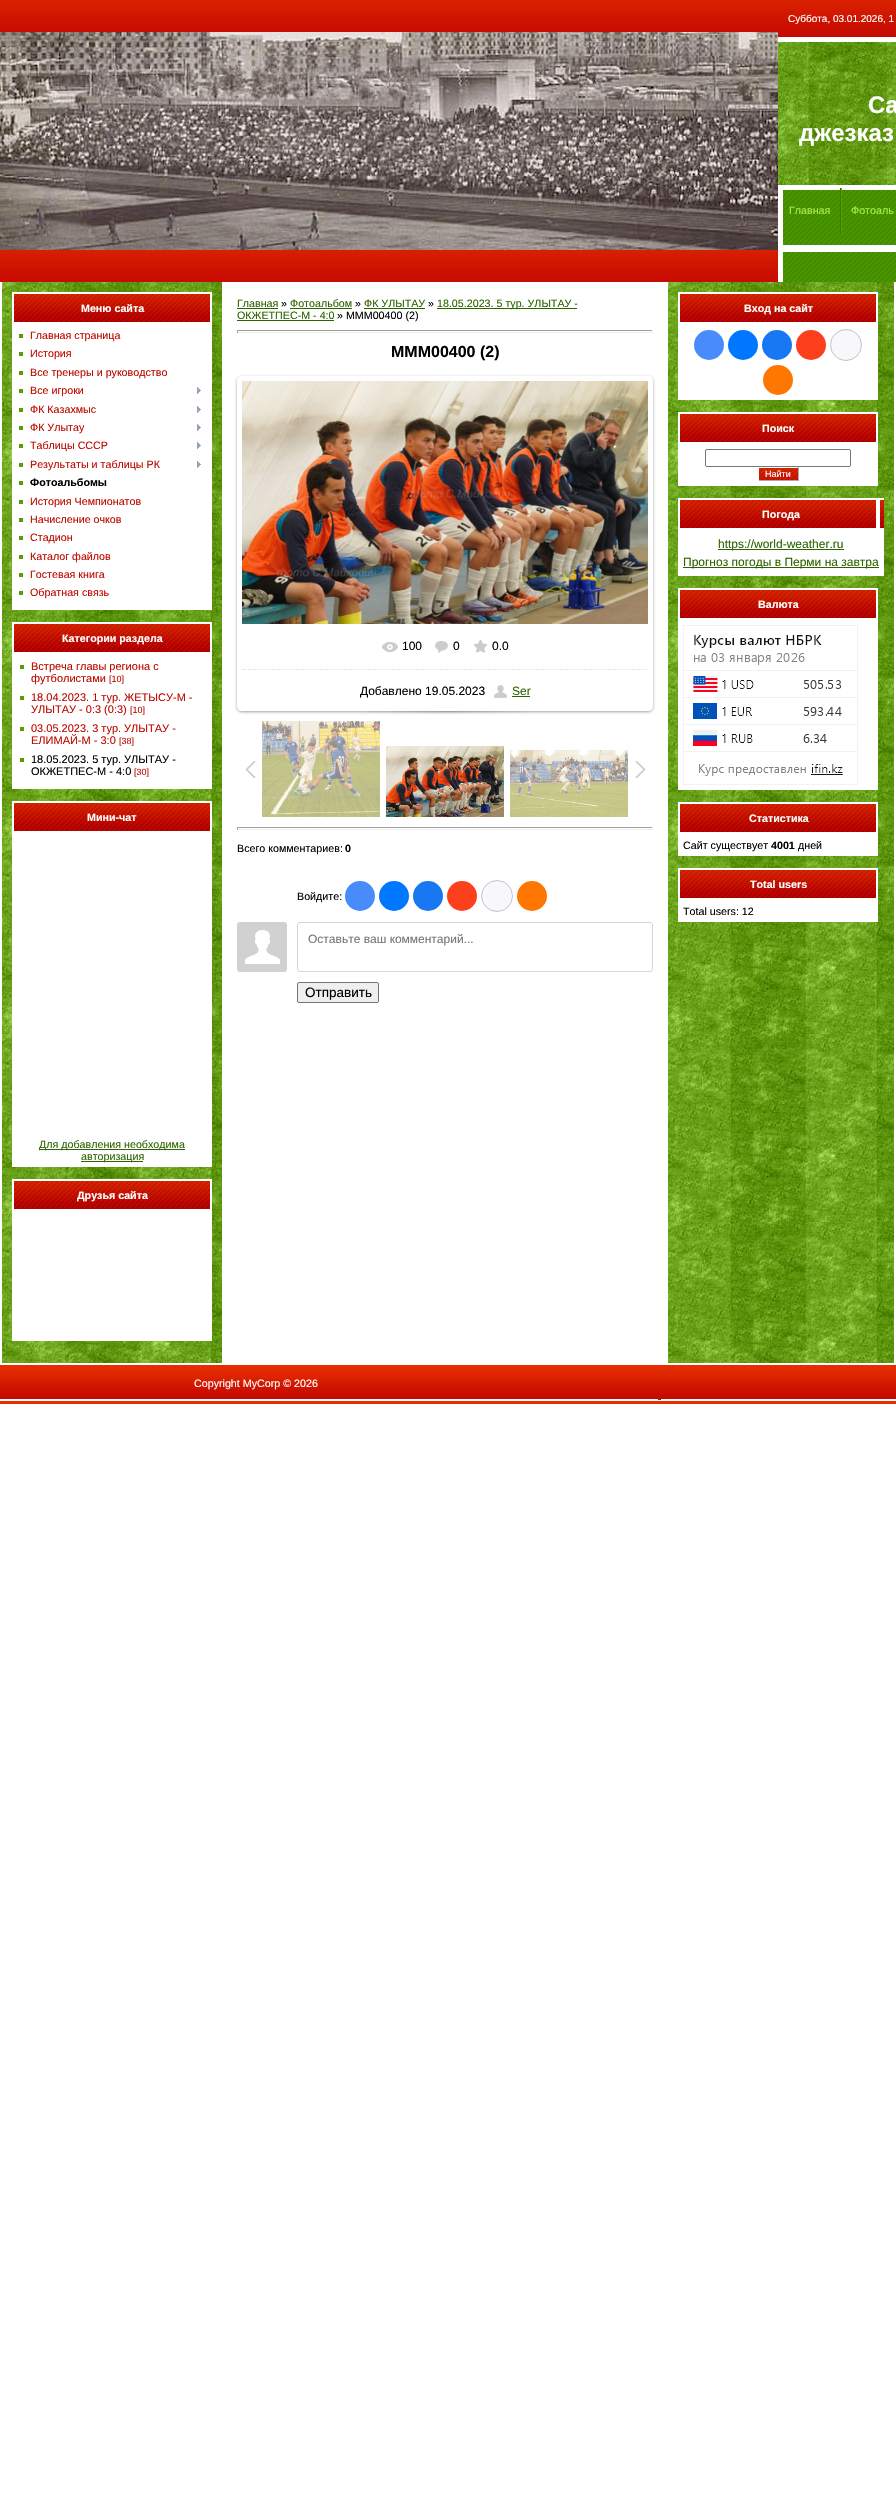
void draw(SkCanvas* canvas) {
	SkPaint fill;
	fill.setAntiAlias(true);
	auto makeFont = [&](const char* family, int weight, float size, bool italic = false) {
		SkFontStyle style(weight, SkFontStyle::kNormal_Width,
			italic ? SkFontStyle::kItalic_Slant : SkFontStyle::kUpright_Slant);
		SkFont result(fontMgr->matchFamilyStyle(family, style), size);
		result.setSubpixel(true);
		return result;
	};
	auto text = [&](const char* s, float x, float y, const SkFont& font) {
		canvas->drawString(s, x, y, font, fill);
	};
	auto box = [&](float l, float t, float r, float b) {
		canvas->drawRect(SkRect::MakeLTRB(l, t, r, b), fill);
	};
	auto picture = [&](const char* path, float l, float t, float r, float b) {
		auto image = SkImages::DeferredFromEncodedData(SkData::MakeFromFileName(path));
		canvas->drawImageRect(image, SkRect::MakeLTRB(l, t, r, b), SkSamplingOptions());
	};
	canvas->clear(0xFFFFFFFF);
	picture("image0.png", 0, 0, 896, 282);
	picture("image1.png", 0, 32, 778, 250);
	picture("image2.png", 783, 185, 896, 282);
	fill.setColor(0xFFFFFFFF);
	box(778, 185, 783, 282);
	picture("image3.png", 840, 188, 842, 235);
	picture("image4.png", 2, 282, 222, 1363);
	picture("image5.png", 12, 292, 212, 324);
	box(12, 324, 212, 610);
	fill.setColor(0xFF5B9D00);
	box(19, 334, 23, 338);
	box(19, 352, 23, 356);
	box(19, 371, 23, 375);
	box(19, 389, 23, 393);
	picture("image6.png", 197, 387, 201, 394);
	box(19, 408, 23, 412);
	picture("image6.png", 197, 406, 201, 413);
	box(19, 426, 23, 430);
	picture("image6.png", 197, 424, 201, 431);
	box(19, 444, 23, 448);
	picture("image6.png", 197, 442, 201, 449);
	box(19, 463, 23, 467);
	picture("image6.png", 197, 461, 201, 468);
	box(19, 481, 23, 485);
	box(19, 500, 23, 504);
	box(19, 518, 23, 522);
	box(19, 536, 23, 540);
	box(19, 555, 23, 559);
	box(19, 573, 23, 577);
	box(19, 591, 23, 595);
	picture("image5.png", 12, 622, 212, 654);
	fill.setColor(0xFFFFFFFF);
	box(12, 654, 212, 789);
	fill.setColor(0xFF5B9D00);
	box(20, 665, 24, 669);
	box(20, 696, 24, 700);
	box(20, 727, 24, 731);
	box(20, 758, 24, 762);
	picture("image5.png", 12, 801, 212, 833);
	fill.setColor(0xFFFFFFFF);
	box(12, 833, 212, 1167);
	fill.setColor(0xFF2E6400);
	box(39, 1149, 185, 1150);
	box(81, 1161, 143, 1162);
	picture("image5.png", 12, 1179, 212, 1211);
	fill.setColor(0xFFFFFFFF);
	box(12, 1211, 212, 1341);
	fill.setColor(0xFF2E6400);
	box(237, 308, 278, 309);
	box(290, 308, 352, 309);
	box(364, 308, 425, 309);
	box(437, 308, 577, 309);
	box(237, 320, 334, 321);
	fill.setColor(0xFF9F9F9F);
	box(237, 330, 653, 331);
	fill.setColor(0xFFEEEEEE);
	box(652, 330, 653, 333);
	box(237, 332, 653, 333);
	fill.setColor(0xFF9F9F9F);
	box(237, 330, 238, 333);
	canvas->save();
	canvas->clipPath(SkPathBuilder(SkPathFillType::kEvenOdd).moveTo(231, 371).lineTo(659, 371).lineTo(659, 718).lineTo(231, 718).close().moveTo(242, 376).lineTo(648, 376).cubicTo(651, 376, 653, 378, 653, 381).lineTo(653, 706).cubicTo(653, 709, 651, 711, 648, 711).lineTo(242, 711).cubicTo(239, 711, 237, 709, 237, 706).lineTo(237, 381).cubicTo(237, 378, 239, 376, 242, 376).close().detach(), true);
	fill.setColor(0x5E000000);
	fill.setMaskFilter(SkMaskFilter::MakeBlur(kNormal_SkBlurStyle, 1.5f));
	canvas->drawRoundRect(SkRect::MakeLTRB(237, 377, 653, 712), 5, 5, fill);
	fill.setMaskFilter(nullptr);
	canvas->restore();
	picture("image7.png", 242, 381, 648, 624);
	picture("image8.png", 382, 642, 398, 652);
	picture("image9.png", 435, 641, 448, 653);
	picture("image10.png", 474, 640, 487, 653);
	picture("image11.png", 242, 669, 648, 670);
	picture("image12.png", 494, 685, 507, 698);
	fill.setColor(0xFF2E6400);
	box(512, 696, 530, 697);
	picture("image13.png", 365, 711, 526, 714);
	picture("image14.png", 245, 761, 256, 778);
	picture("image15.png", 262, 721, 380, 817);
	picture("image16.png", 386, 746, 504, 817);
	picture("image17.png", 510, 750, 628, 817);
	picture("image18.png", 635, 761, 646, 778);
	fill.setColor(0xFF9F9F9F);
	box(237, 827, 653, 828);
	fill.setColor(0xFFEEEEEE);
	box(652, 827, 653, 830);
	box(237, 829, 653, 830);
	fill.setColor(0xFF9F9F9F);
	box(237, 827, 238, 830);
	fill.setColor(0xFF498BFA);
	canvas->drawCircle(360, 896, 15, fill);
	fill.setColor(0xFF0077FF);
	canvas->drawCircle(394, 896, 15, fill);
	fill.setColor(0xFF1877F2);
	canvas->drawCircle(428, 896, 15, fill);
	fill.setColor(0xFFFC3F1D);
	canvas->drawCircle(462, 896, 15, fill);
	fill.setColor(0xFFF8F8FC);
	canvas->drawCircle(497, 896, 15.5f, fill);
	fill.setStyle(SkPaint::kStroke_Style);
	fill.setStrokeWidth(1);
	fill.setColor(0xFFC4C4C4);
	canvas->drawCircle(497, 896, 15.5f, fill);
	fill.setStyle(SkPaint::kFill_Style);
	fill.setColor(0xFFFF7700);
	canvas->drawCircle(532, 896, 15, fill);
	picture("image19.png", 237, 922, 287, 972);
	fill.setStyle(SkPaint::kStroke_Style);
	fill.setColor(0xFFD6D6D6);
	canvas->drawRoundRect(SkRect::MakeLTRB(297.5f, 922.5f, 652.5f, 971.5f), 2.5f, 2.5f, fill);
	fill.setStyle(SkPaint::kFill_Style);
	fill.setColor(0xFFEFEFEF);
	canvas->drawRoundRect(SkRect::MakeLTRB(297.5f, 982.5f, 378.5f, 1002.5f), 1.5f, 1.5f, fill);
	fill.setStyle(SkPaint::kStroke_Style);
	fill.setColor(0xFF767676);
	canvas->drawRoundRect(SkRect::MakeLTRB(297.5f, 982.5f, 378.5f, 1002.5f), 1.5f, 1.5f, fill);
	picture("image20.png", 668, 282, 894, 1363);
	picture("image5.png", 678, 292, 878, 324);
	fill.setStyle(SkPaint::kFill_Style);
	fill.setColor(0xFFFFFFFF);
	box(678, 324, 878, 400);
	fill.setColor(0xFF498BFA);
	canvas->drawCircle(709, 345, 15, fill);
	fill.setColor(0xFF0077FF);
	canvas->drawCircle(743, 345, 15, fill);
	fill.setColor(0xFF1877F2);
	canvas->drawCircle(777, 345, 15, fill);
	fill.setColor(0xFFFC3F1D);
	canvas->drawCircle(811, 345, 15, fill);
	fill.setColor(0xFFF8F8FC);
	canvas->drawCircle(846, 345, 15.5f, fill);
	fill.setStyle(SkPaint::kStroke_Style);
	fill.setColor(0xFFC4C4C4);
	canvas->drawCircle(846, 345, 15.5f, fill);
	fill.setStyle(SkPaint::kFill_Style);
	fill.setColor(0xFFFF7700);
	canvas->drawCircle(778, 380, 15, fill);
	picture("image5.png", 678, 412, 878, 444);
	fill.setColor(0xFFFFFFFF);
	box(678, 444, 878, 486);
	fill.setStyle(SkPaint::kStroke_Style);
	fill.setColor(0xFF767676);
	canvas->drawRoundRect(SkRect::MakeLTRB(705.5f, 449.5f, 850.5f, 466.5f), 1.5f, 1.5f, fill);
	picture("image21.png", 759, 468, 798, 480);
	fill.setStyle(SkPaint::kFill_Style);
	fill.setColor(0xFFAAAAAA);
	box(798, 467, 799, 481);
	box(758, 480, 799, 481);
	fill.setColor(0xFFFFFFFF);
	box(758, 480, 759, 481);
	picture("image22.png", 678, 498, 884, 530);
	box(678, 530, 884, 576);
	fill.setColor(0xFF2E6400);
	box(718, 549, 844, 550);
	box(683, 567, 879, 568);
	picture("image5.png", 678, 588, 878, 620);
	fill.setColor(0xFFFFFFFF);
	box(678, 620, 878, 790);
	picture("image23.png", 683, 625, 858, 785);
	picture("image5.png", 678, 802, 878, 834);
	box(678, 834, 878, 856);
	picture("image5.png", 678, 868, 878, 900);
	box(678, 900, 878, 922);
	picture("image24.png", 0, 1363, 896, 1404);
	fill.setColor(0xFF2E6400);
	box(658, 1399, 661, 1400);
	auto font1 = makeFont("Liberation Sans", 400, 10);
	fill.setColor(0xFFFFFFFF);
	text("Суббота, 03.01.2026, 1", 788, 22, font1);
	auto font2 = makeFont("Liberation Sans", 700, 24);
	text("Са", 868, 113, font2);
	text("джезказ", 799, 141, font2);
	auto font3 = makeFont("Liberation Sans", 400, 10.7f);
	fill.setColor(0xFFA6EB47);
	text("Главная", 789, 214, font3);
	text("Фотоаль", 851, 214, font3);
	auto font4 = makeFont("Liberation Sans", 700, 10.7f);
	fill.setColor(0xFFFFFFFF);
	text("Меню сайта", 81, 312, font4);
	fill.setColor(0xFFBD0A00);
	text("Главная страница", 30, 339, font3);
	text("История", 30, 357, font3);
	text("Все тренеры и руководство", 30, 376, font3);
	text("Все игроки", 30, 394, font3);
	text("ФК Казахмыс", 30, 413, font3);
	text("ФК Улытау", 30, 431, font3);
	text("Таблицы СССР", 30, 449, font3);
	text("Результаты и таблицы РК", 30, 468, font3);
	fill.setColor(0xFF000000);
	text("Фотоальбомы", 30, 486, font4);
	fill.setColor(0xFFBD0A00);
	text("История Чемпионатов", 30, 505, font3);
	text("Начисление очков", 30, 523, font3);
	text("Стадион", 30, 541, font3);
	text("Каталог файлов", 30, 560, font3);
	text("Гостевая книга", 30, 578, font3);
	text("Обратная связь", 30, 596, font3);
	fill.setColor(0xFFFFFFFF);
	text("Категории раздела", 62, 642, font4);
	auto font5 = makeFont("Liberation Sans", 400, 11);
	fill.setColor(0xFFBD0A00);
	text("Встреча главы региона с", 31, 670, font5);
	text("футболистами", 31, 682, font5);
	auto font6 = makeFont("Liberation Sans", 400, 9);
	text("[10]", 109, 682, font6);
	text("18.04.2023. 1 тур. ЖЕТЫСУ-М -", 31, 701, font5);
	text("УЛЫТАУ - 0:3 (0:3)", 31, 713, font5);
	text("[10]", 130, 713, font6);
	text("03.05.2023. 3 тур. УЛЫТАУ -", 31, 732, font5);
	text("ЕЛИМАЙ-М - 3:0", 31, 744, font5);
	text("[38]", 119, 744, font6);
	fill.setColor(0xFF000000);
	text("18.05.2023. 5 тур. УЛЫТАУ -", 31, 763, font5);
	text("ОКЖЕТПЕС-М - 4:0", 31, 775, font5);
	fill.setColor(0xFFBD0A00);
	text("[30]", 134, 775, font6);
	fill.setColor(0xFFFFFFFF);
	text("Мини-чат", 87, 821, font4);
	fill.setColor(0xFF2E6400);
	text("Для добавления необходима", 39, 1148, font3);
	text("авторизация", 81, 1160, font3);
	fill.setColor(0xFFFFFFFF);
	text("Друзья сайта", 77, 1199, font4);
	fill.setColor(0xFF2E6400);
	text("Главная", 237, 307, font3);
	fill.setColor(0xFF000000);
	text("»", 281, 307, font3);
	fill.setColor(0xFF2E6400);
	text("Фотоальбом", 290, 307, font3);
	fill.setColor(0xFF000000);
	text("»", 355, 307, font3);
	fill.setColor(0xFF2E6400);
	text("ФК УЛЫТАУ", 364, 307, font3);
	fill.setColor(0xFF000000);
	text("»", 428, 307, font3);
	fill.setColor(0xFF2E6400);
	text("18.05.2023. 5 тур. УЛЫТАУ -", 437, 307, font3);
	text("ОКЖЕТПЕС-М - 4:0", 237, 319, font3);
	fill.setColor(0xFF000000);
	text("» MMM00400 (2)", 337, 319, font3);
	auto font7 = makeFont("Liberation Sans", 700, 16);
	text("MMM00400 (2)", 391, 357, font7);
	auto font8 = makeFont("Liberation Sans", 400, 12);
	text("100", 402, 650, font8);
	text("0", 453, 650, font8);
	text("0.0", 492, 650, font8);
	text("Добавлено 19.05.2023", 360, 695, font8);
	fill.setColor(0xFF2E6400);
	text("Ser", 512, 695, font8);
	fill.setColor(0xFF000000);
	text("Всего комментариев:", 237, 852, font3);
	text("0", 345, 852, font4);
	text("Войдите:", 297, 900, font3);
	fill.setColor(0xFF757575);
	text("Оставьте ваш комментарий...", 308, 943, font8);
	auto font9 = makeFont("Liberation Sans", 400, 13.5f);
	fill.setColor(0xFF000000);
	text("Отправить", 305, 997, font9);
	fill.setColor(0xFFFFFFFF);
	text("Вход на сайт", 744, 312, font4);
	text("Поиск", 762, 432, font4);
	text("Найти", 765, 477, font6);
	text("Погода", 762, 518, font4);
	fill.setColor(0xFF2E6400);
	text("https://world-weather.ru", 718, 548, font8);
	text("Прогноз погоды в Перми на завтра", 683, 566, font8);
	fill.setColor(0xFFFFFFFF);
	text("Валюта", 758, 608, font4);
	text("Статистика", 749, 822, font4);
	fill.setColor(0xFF000000);
	text("Сайт существует", 683, 849, font3);
	text("4001", 771, 849, font4);
	text("дней", 798, 849, font3);
	fill.setColor(0xFFFFFFFF);
	text("Total users", 750, 888, font4);
	fill.setColor(0xFF000000);
	text("Total users: 12", 683, 915, font3);
	fill.setColor(0xFFFFFFFF);
	text("Copyright MyCorp © 2026", 194, 1387, font3);
}
